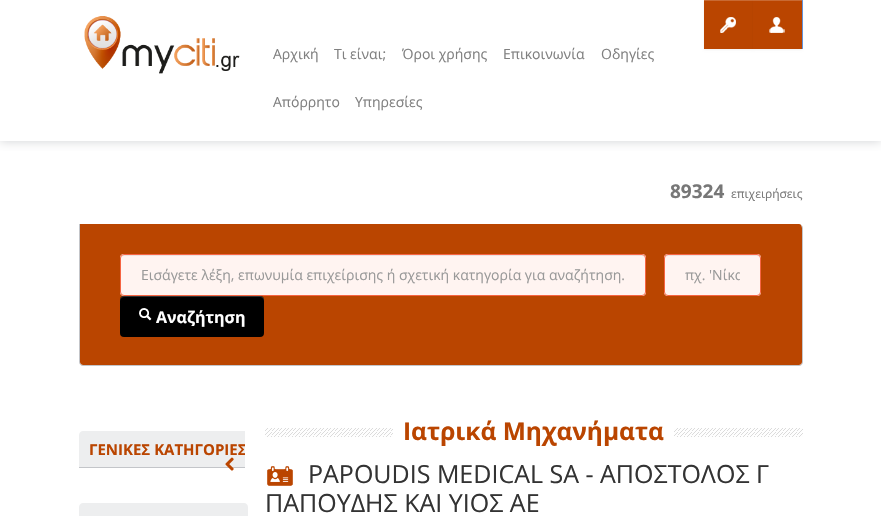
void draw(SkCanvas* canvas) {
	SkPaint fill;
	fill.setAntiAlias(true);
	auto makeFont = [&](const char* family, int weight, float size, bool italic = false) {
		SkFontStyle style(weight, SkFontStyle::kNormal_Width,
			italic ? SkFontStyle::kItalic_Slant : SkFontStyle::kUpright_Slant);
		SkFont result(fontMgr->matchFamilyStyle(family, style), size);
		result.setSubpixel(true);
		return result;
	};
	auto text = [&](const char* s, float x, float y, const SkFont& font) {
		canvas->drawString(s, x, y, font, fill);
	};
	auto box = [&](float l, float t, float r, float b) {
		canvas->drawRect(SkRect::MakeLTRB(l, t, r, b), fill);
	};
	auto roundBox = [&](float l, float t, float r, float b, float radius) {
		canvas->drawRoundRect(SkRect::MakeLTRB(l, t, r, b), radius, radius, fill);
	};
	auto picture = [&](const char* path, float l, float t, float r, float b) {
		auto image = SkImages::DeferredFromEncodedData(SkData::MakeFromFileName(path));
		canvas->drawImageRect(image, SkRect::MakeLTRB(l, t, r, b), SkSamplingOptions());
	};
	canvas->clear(0xFFFFFFFF);
	canvas->save();
	canvas->clipRect(SkRect::MakeLTRB(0, 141, 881, 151));
	fill.setColor(0xFFD0D2D5);
	fill.setMaskFilter(SkMaskFilter::MakeBlur(kNormal_SkBlurStyle, 5));
	canvas->drawRect(SkRect::MakeLTRB(0, 0, 881, 141), fill);
	fill.setMaskFilter(nullptr);
	canvas->restore();
	picture("image0.png", 84, 16, 240, 74);
	fill.setColor(0xFF6395DE);
	box(802, 0, 803, 49);
	fill.setColor(0x0D000000);
	fill.setMaskFilter(SkMaskFilter::MakeBlur(kNormal_SkBlurStyle, 1));
	canvas->drawRect(SkRect::MakeLTRB(704, 1, 753, 50), fill);
	fill.setMaskFilter(nullptr);
	fill.setColor(0xFFBA4500);
	box(704, 1, 753, 49);
	picture("image1.png", 720, 17, 736, 33);
	fill.setColor(0xFFC86A33);
	box(704, 0, 753, 1);
	fill.setColor(0x0D000000);
	fill.setMaskFilter(SkMaskFilter::MakeBlur(kNormal_SkBlurStyle, 1));
	canvas->drawRect(SkRect::MakeLTRB(753, 1, 802, 50), fill);
	fill.setMaskFilter(nullptr);
	fill.setColor(0xFFBA4500);
	box(753, 1, 802, 49);
	picture("image2.png", 769, 17, 785, 33);
	fill.setColor(0xFFC86A33);
	box(753, 0, 802, 1);
	fill.setColor(0xFFBA4500);
	canvas->drawPath(SkPathBuilder().moveTo(80, 224).lineTo(799, 224).cubicTo(801, 224, 802, 226, 802, 228).lineTo(802, 362).cubicTo(802, 364, 801, 365, 799, 365).lineTo(83, 365).cubicTo(81, 365, 80, 364, 80, 362).close().detach(), fill);
	fill.setColor(0xFFC3C5C9);
	canvas->drawPath(SkPathBuilder(SkPathFillType::kEvenOdd).moveTo(79, 224).lineTo(799, 224).cubicTo(801, 224, 803, 226, 803, 228).lineTo(803, 362).cubicTo(803, 364, 801, 366, 799, 366).lineTo(83, 366).cubicTo(81, 366, 79, 364, 79, 362).close().moveTo(80, 224).lineTo(799, 224).cubicTo(801, 224, 802, 226, 802, 228).lineTo(802, 362).cubicTo(802, 364, 801, 365, 799, 365).lineTo(83, 365).cubicTo(81, 365, 80, 364, 80, 362).close().detach(), fill);
	fill.setColor(0xFFFFF4F1);
	roundBox(120, 254, 646, 296, 4);
	fill.setColor(0xFFECE2DF);
	canvas->drawPath(SkPathBuilder().moveTo(124, 256).lineTo(642, 256).cubicTo(644, 256, 645, 257, 645, 259).lineTo(645, 257).lineTo(643, 255).lineTo(124, 255).cubicTo(122, 255, 121, 257, 121, 259).cubicTo(121, 257, 122, 256, 124, 256).close().detach(), fill);
	fill.setStyle(SkPaint::kStroke_Style);
	fill.setStrokeWidth(1);
	fill.setColor(0xFFF66442);
	canvas->drawRoundRect(SkRect::MakeLTRB(120.5f, 254.5f, 645.5f, 295.5f), 3.5f, 3.5f, fill);
	fill.setStyle(SkPaint::kFill_Style);
	fill.setColor(0xFFFFF4F1);
	roundBox(664, 254, 761, 296, 4);
	fill.setColor(0xFFECE2DF);
	canvas->drawPath(SkPathBuilder().moveTo(668, 256).lineTo(757, 256).cubicTo(759, 256, 760, 257, 760, 259).cubicTo(760, 251, 745, 255, 742, 255).lineTo(683, 255).cubicTo(680, 255, 665, 251, 665, 259).cubicTo(665, 257, 666, 256, 668, 256).close().detach(), fill);
	fill.setStyle(SkPaint::kStroke_Style);
	fill.setColor(0xFFF66442);
	canvas->drawRoundRect(SkRect::MakeLTRB(664.5f, 254.5f, 760.5f, 295.5f), 3.5f, 3.5f, fill);
	fill.setStyle(SkPaint::kFill_Style);
	fill.setColor(0xFF000000);
	roundBox(120, 296, 264, 337, 4);
	fill.setColor(0x33FFFFFF);
	canvas->drawPath(SkPathBuilder().moveTo(124, 297).lineTo(260, 297).cubicTo(262, 297, 264, 299, 264, 301).lineTo(264, 300).cubicTo(264, 298, 262, 296, 260, 296).lineTo(124, 296).cubicTo(122, 296, 120, 298, 120, 300).lineTo(120, 301).cubicTo(120, 299, 122, 297, 124, 297).close().detach(), fill);
	picture("image3.png", 139, 308, 152, 321);
	fill.setColor(0xFFEDEEEF);
	canvas->drawPath(SkPathBuilder().moveTo(83, 431).lineTo(245, 431).lineTo(245, 468).lineTo(79, 468).lineTo(79, 435).cubicTo(79, 433, 81, 431, 83, 431).close().detach(), fill);
	fill.setColor(0xFFC3C5C9);
	box(79, 467, 245, 468);
	picture("image4.png", 225, 457, 234, 471);
	fill.setColor(0xFFEDEEEF);
	canvas->drawPath(SkPathBuilder().moveTo(83, 503).lineTo(244, 503).cubicTo(246, 503, 248, 505, 248, 507).lineTo(248, 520).lineTo(79, 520).lineTo(79, 507).cubicTo(79, 505, 81, 503, 83, 503).close().detach(), fill);
	picture("image5.png", 265, 428, 803, 437);
	fill.setColor(0xFFFFFFFF);
	box(393, 428, 674, 437);
	picture("image6.png", 267, 466, 293, 486);
	auto font1 = makeFont("Open Sans", 400, 14);
	fill.setColor(0xFF808080);
	text("Αρχική", 273, 59, font1);
	text("Τι είναι;", 334, 59, font1);
	text("Όροι χρήσης", 402, 59, font1);
	text("Επικοινωνία", 503, 59, font1);
	text("Οδηγίες", 601, 59, font1);
	text("Απόρρητο", 273, 107, font1);
	text("Υπηρεσίες", 355, 107, font1);
	auto font2 = makeFont("Open Sans", 700, 19);
	fill.setColor(0xFF777777);
	text("89324", 670, 198, font2);
	auto font3 = makeFont("Open Sans", 400, 12);
	text("επιχειρήσεις", 731, 198, font3);
	fill.setColor(0xFF999999);
	text("Εισάγετε λέξη, επωνυμία επιχείρισης ή σχετική κατηγορία για αναζήτηση.", 141, 280, font1);
	canvas->save();
	canvas->clipRect(SkRect::MakeLTRB(685, 265, 740, 284));
	text("πχ. 'Νίκα", 685, 280, font1);
	canvas->restore();
	auto font4 = makeFont("Open Sans", 700, 16);
	fill.setColor(0xFFFFFFFF);
	text("Αναζήτηση", 156, 323, font4);
	canvas->save();
	canvas->clipRect(SkRect::MakeLTRB(79, 421, 245, 478));
	auto font5 = makeFont("Open Sans", 700, 15);
	fill.setColor(0xFFBA4500);
	text("ΓΕΝΙΚΕΣ ΚΑΤΗΓΟΡΙΕΣ", 89, 455, font5);
	canvas->restore();
	auto font6 = makeFont("Open Sans", 700, 24.5f);
	text("Ιατρικά Μηχανήματα", 403, 440, font6);
	auto font7 = makeFont("Open Sans", 400, 25);
	fill.setColor(0xFF333333);
	text("PAPOUDIS MEDICAL SA - ΑΠΟΣΤΟΛΟΣ Γ", 308, 483, font7);
	text("ΠΑΠΟΥΔΗΣ ΚΑΙ ΥΙΟΣ ΑΕ", 265, 512, font7);
}
